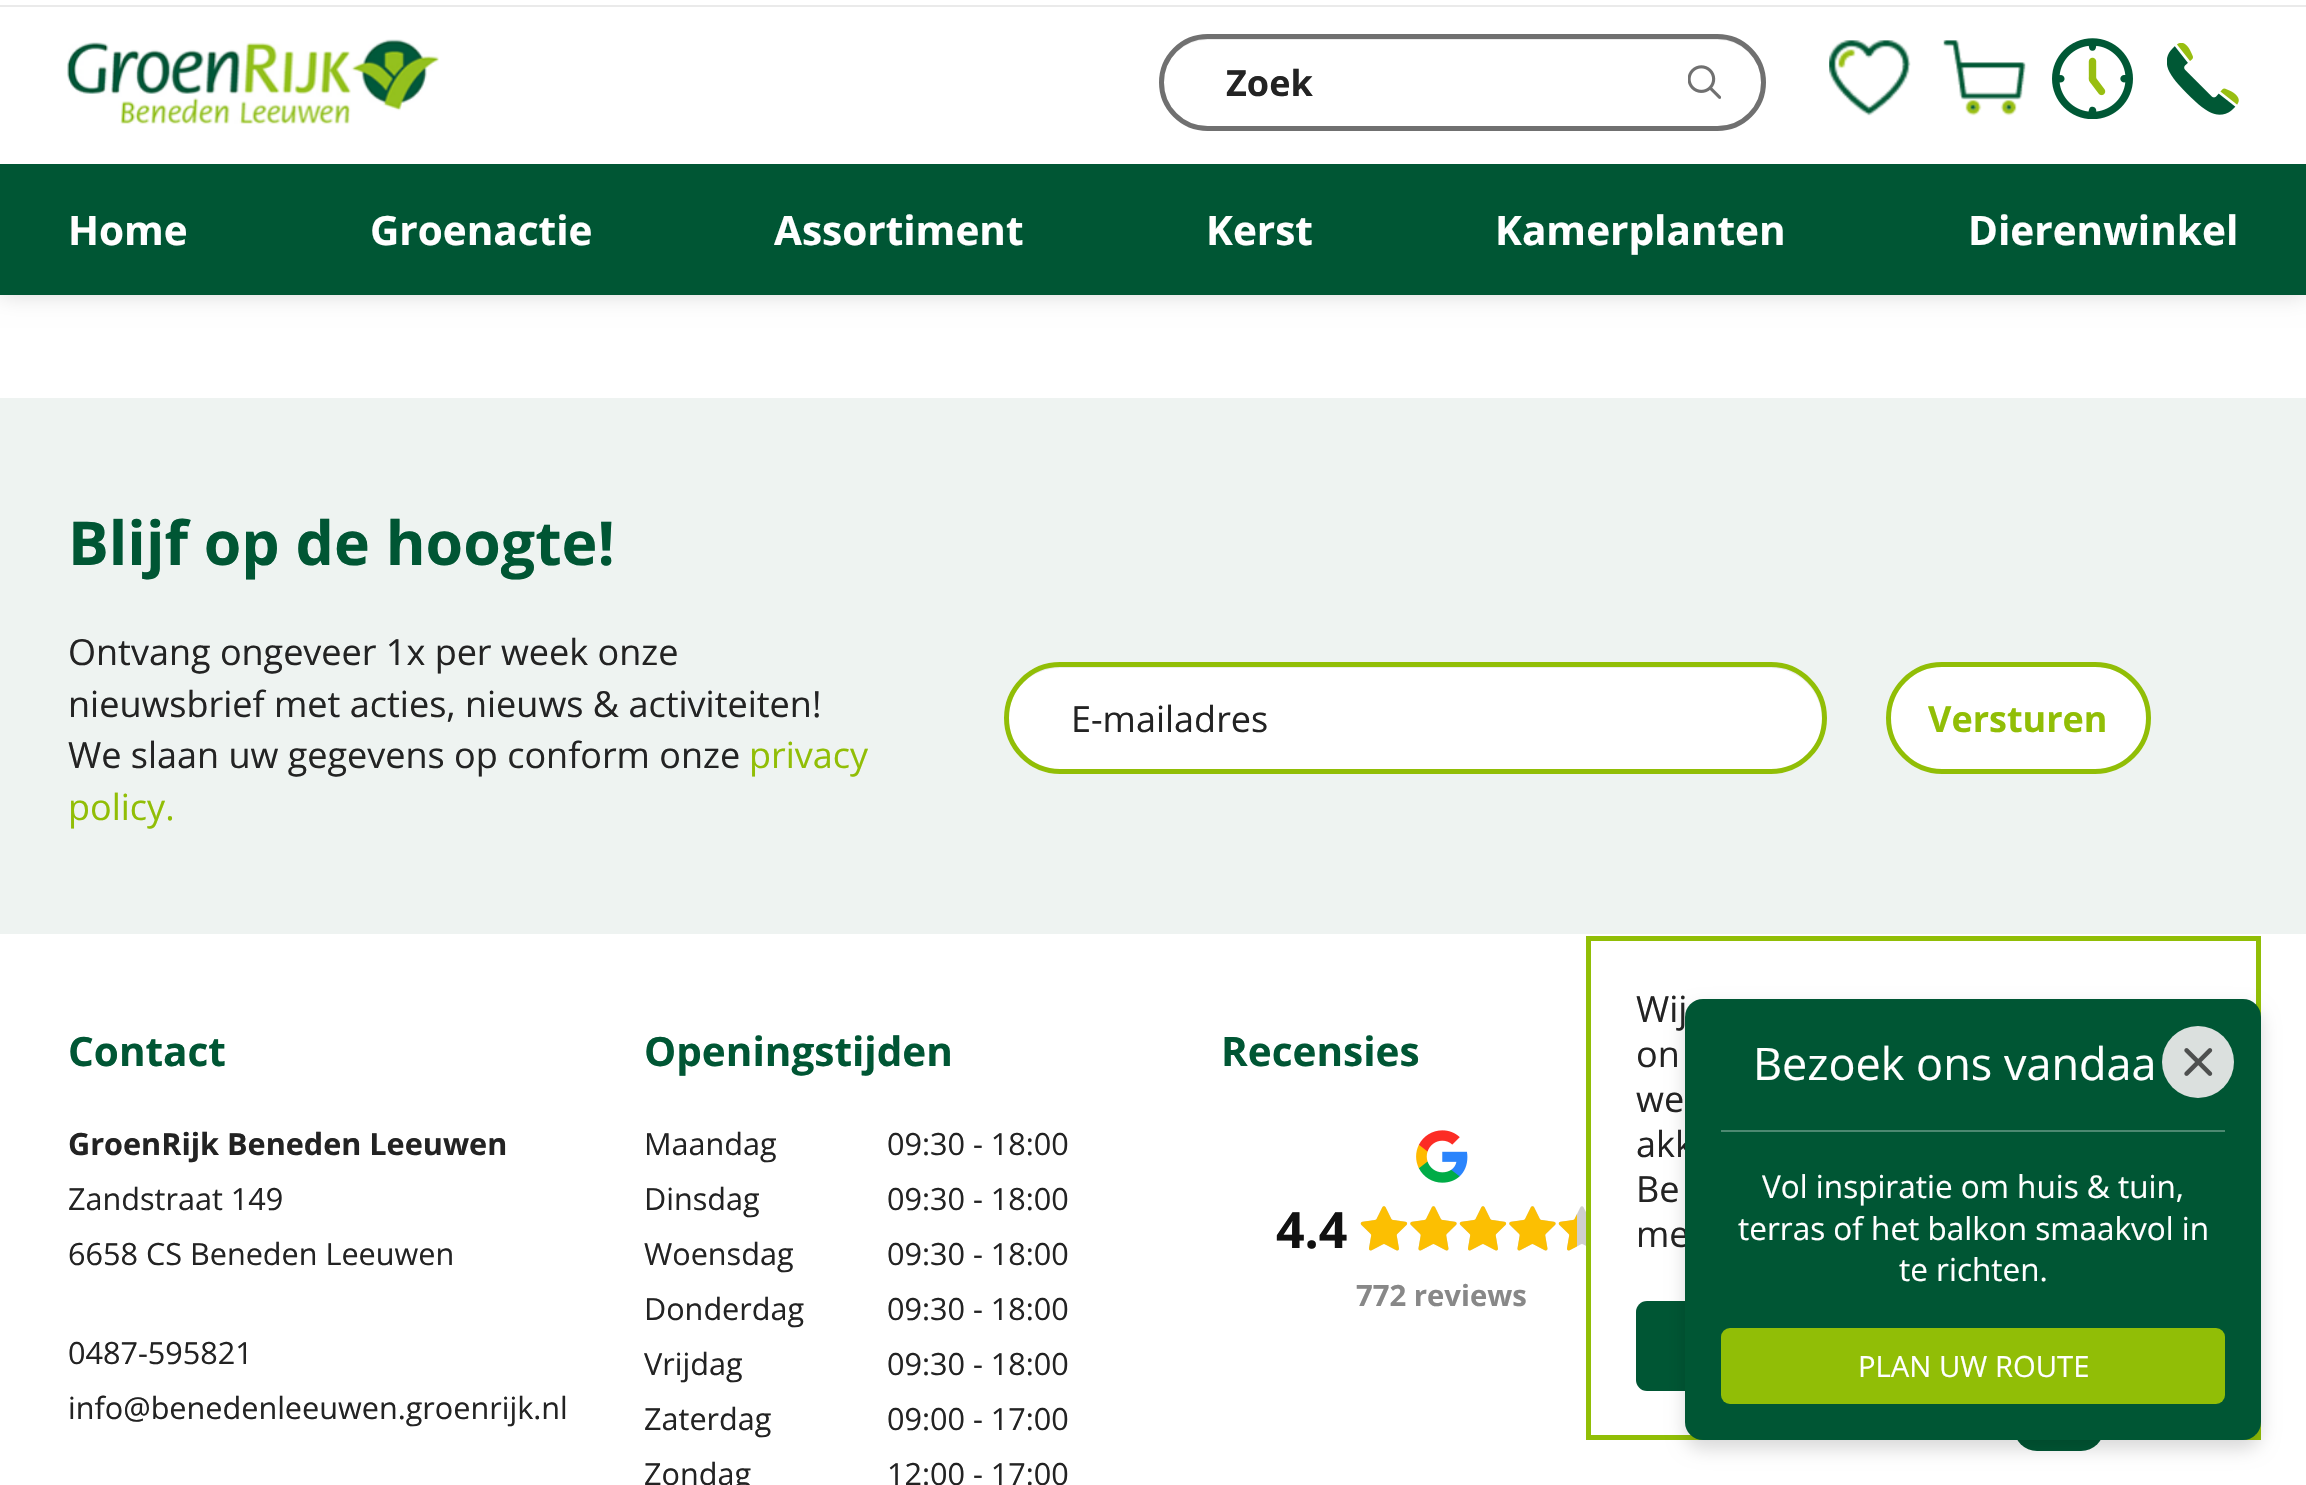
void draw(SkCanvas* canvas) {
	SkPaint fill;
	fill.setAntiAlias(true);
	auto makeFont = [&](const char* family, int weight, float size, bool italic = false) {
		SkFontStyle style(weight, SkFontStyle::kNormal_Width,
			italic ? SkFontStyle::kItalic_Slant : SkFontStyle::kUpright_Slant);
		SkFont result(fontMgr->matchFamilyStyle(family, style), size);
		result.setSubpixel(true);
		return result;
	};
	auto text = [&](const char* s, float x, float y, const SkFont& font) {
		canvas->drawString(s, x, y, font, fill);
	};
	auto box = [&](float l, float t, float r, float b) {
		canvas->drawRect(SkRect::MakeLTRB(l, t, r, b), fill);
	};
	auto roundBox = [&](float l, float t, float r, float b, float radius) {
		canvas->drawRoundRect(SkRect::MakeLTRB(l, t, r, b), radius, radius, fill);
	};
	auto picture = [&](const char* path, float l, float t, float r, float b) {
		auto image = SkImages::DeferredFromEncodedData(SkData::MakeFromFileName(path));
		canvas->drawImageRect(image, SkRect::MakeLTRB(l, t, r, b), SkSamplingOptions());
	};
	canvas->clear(0xFFFFFFFF);
	fill.setColor(0x26000000);
	fill.setMaskFilter(SkMaskFilter::MakeBlur(kNormal_SkBlurStyle, 11));
	canvas->drawRect(SkRect::MakeLTRB(0, -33, 2306, 295), fill);
	fill.setMaskFilter(nullptr);
	fill.setColor(0xFFFFFFFF);
	box(0, 0, 2306, 164);
	fill.setColor(0xFFEAEAEA);
	box(0, 5, 2306, 7);
	picture("image0.png", 67, 39, 439, 124);
	fill.setColor(0xFFECECEC);
	canvas->drawPath(SkPathBuilder().moveTo(1207, 40).lineTo(1718, 40).cubicTo(1742, 40, 1761, 59, 1762, 83).lineTo(1762, 82).cubicTo(1762, 58, 1742, 38, 1718, 38).lineTo(1207, 38).cubicTo(1183, 38, 1163, 58, 1163, 82).lineTo(1163, 83).cubicTo(1164, 59, 1183, 40, 1207, 40).close().detach(), fill);
	fill.setStyle(SkPaint::kStroke_Style);
	fill.setStrokeWidth(5);
	fill.setColor(0xFF707070);
	canvas->drawRoundRect(SkRect::MakeLTRB(1161.5f, 36.5f, 1763.5f, 128.5f), 46, 46, fill);
	picture("image1.png", 1688, 65, 1721, 99);
	picture("image2.png", 1829, 40, 1911, 116);
	picture("image3.png", 1943, 40, 2026, 116);
	picture("image4.png", 2052, 38, 2133, 119);
	picture("image5.png", 2167, 43, 2239, 115);
	fill.setStyle(SkPaint::kFill_Style);
	fill.setColor(0xFF005634);
	box(0, 164, 2306, 295);
	fill.setColor(0xFFEEF3F1);
	box(0, 398, 2306, 934);
	fill.setColor(0xFFFFFFFF);
	roundBox(1004, 662, 1827, 774, 56);
	fill.setColor(0xFFECECEC);
	canvas->drawPath(SkPathBuilder().moveTo(1060, 668).lineTo(1771, 668).cubicTo(1799, 668, 1822, 691, 1822, 720).cubicTo(1822, 727, 1821, 734, 1818, 740).cubicTo(1821, 733, 1823, 726, 1823, 718).cubicTo(1823, 689, 1800, 666, 1771, 666).lineTo(1060, 666).cubicTo(1031, 666, 1008, 689, 1008, 718).lineTo(1008, 719).cubicTo(1009, 690, 1031, 668, 1060, 668).close().detach(), fill);
	fill.setStyle(SkPaint::kStroke_Style);
	fill.setColor(0xFF91BE06);
	canvas->drawRoundRect(SkRect::MakeLTRB(1006.5f, 664.5f, 1824.5f, 771.5f), 53.5f, 53.5f, fill);
	fill.setStyle(SkPaint::kFill_Style);
	fill.setColor(0xFFFFFFFF);
	canvas->drawRoundRect(SkRect::MakeLTRB(1888.5f, 664.5f, 2148.5f, 771.5f), 53.5f, 53.5f, fill);
	fill.setStyle(SkPaint::kStroke_Style);
	fill.setColor(0xFF91BE06);
	canvas->drawRoundRect(SkRect::MakeLTRB(1888.5f, 664.5f, 2148.5f, 771.5f), 53.5f, 53.5f, fill);
	picture("image6.png", 1416, 1130, 1468, 1183);
	picture("image7.png", 1360, 1206, 1407, 1251);
	picture("image8.png", 1360, 1206, 1408, 1251);
	picture("image9.png", 1410, 1206, 1457, 1251);
	picture("image10.png", 1410, 1206, 1457, 1251);
	picture("image7.png", 1459, 1206, 1506, 1251);
	picture("image8.png", 1459, 1206, 1507, 1251);
	picture("image9.png", 1509, 1206, 1556, 1251);
	picture("image10.png", 1509, 1206, 1556, 1251);
	picture("image11.png", 1558, 1206, 1586, 1251);
	picture("image12.png", 1558, 1214, 1577, 1251);
	canvas->drawRect(SkRect::MakeLTRB(1588.5f, 938.5f, 2258.5f, 1437.5f), fill);
	fill.setStyle(SkPaint::kFill_Style);
	fill.setColor(0xFF005634);
	roundBox(1636, 1301, 2212, 1391, 11);
	roundBox(2014, 1361, 2104, 1451, 23);
	fill.setColor(0x26000000);
	fill.setMaskFilter(SkMaskFilter::MakeBlur(kNormal_SkBlurStyle, 9));
	canvas->drawRoundRect(SkRect::MakeLTRB(1685, 1008, 2261, 1449), 18, 18, fill);
	fill.setMaskFilter(nullptr);
	auto font1 = makeFont("Open Sans", 700, 36);
	fill.setColor(0xFF232323);
	text("Zoek", 1226, 96, font1);
	auto font2 = makeFont("Open Sans", 700, 40.5f);
	fill.setColor(0xFFFFFFFF);
	text("Home", 68, 245, font2);
	text("Groenactie", 370, 245, font2);
	text("Assortiment", 774, 245, font2);
	text("Kerst", 1206, 245, font2);
	text("Kamerplanten", 1495, 245, font2);
	text("Dierenwinkel", 1968, 245, font2);
	auto font3 = makeFont("Open Sans", 700, 60.75f);
	fill.setColor(0xFF005634);
	text("Blijf op de hoogte!", 68, 565, font3);
	auto font4 = makeFont("Open Sans", 400, 36);
	fill.setColor(0xFF232323);
	text("Ontvang ongeveer 1x per week onze", 68, 665, font4);
	text("nieuwsbrief met acties, nieuws & activiteiten!", 68, 717, font4);
	text("We slaan uw gegevens op conform onze", 68, 768, font4);
	fill.setColor(0xFF91BE06);
	text("privacy", 749, 768, font4);
	text("policy.", 68, 820, font4);
	fill.setColor(0xFF232323);
	text("E-mailadres", 1071, 732, font4);
	fill.setColor(0xFF91BE06);
	text("Versturen", 1928, 732, font1);
	fill.setColor(0xFF005634);
	text("Contact", 68, 1066, font2);
	auto font5 = makeFont("Open Sans", 700, 30.6f);
	fill.setColor(0xFF232323);
	text("GroenRijk Beneden Leeuwen", 68, 1155, font5);
	auto font6 = makeFont("Open Sans", 400, 30.6f);
	text("Zandstraat 149", 68, 1210, font6);
	text("6658 CS Beneden Leeuwen", 68, 1265, font6);
	text("0487-595821", 68, 1364, font6);
	text("info@benedenleeuwen.groenrijk.nl", 68, 1419, font6);
	fill.setColor(0xFF005634);
	text("Openingstijden", 644, 1066, font2);
	fill.setColor(0xFF232323);
	text("Maandag", 644, 1155, font6);
	text("09:30 - 18:00", 887, 1155, font6);
	text("Dinsdag", 644, 1210, font6);
	text("09:30 - 18:00", 887, 1210, font6);
	text("Woensdag", 644, 1265, font6);
	text("09:30 - 18:00", 887, 1265, font6);
	text("Donderdag", 644, 1320, font6);
	text("09:30 - 18:00", 887, 1320, font6);
	text("Vrijdag", 644, 1375, font6);
	text("09:30 - 18:00", 887, 1375, font6);
	text("Zaterdag", 644, 1430, font6);
	text("09:00 - 17:00", 887, 1430, font6);
	text("Zondag", 644, 1485, font6);
	text("12:00 - 17:00", 887, 1485, font6);
	fill.setColor(0xFF005634);
	text("Recensies", 1221, 1066, font2);
	auto font7 = makeFont("Open Sans", 700, 50);
	fill.setColor(0xFF111111);
	text("4.4", 1276, 1248, font7);
	auto font8 = makeFont("Open Sans", 700, 29.25f);
	fill.setColor(0xFF888888);
	text("772 reviews", 1356, 1306, font8);
	fill.setColor(0xFF232323);
	text("Wij", 1636, 1022, font4);
	text("on", 1636, 1067, font4);
	text("we", 1636, 1112, font4);
	text("akk", 1636, 1157, font4);
	text("Be", 1636, 1202, font4);
	text("me", 1636, 1247, font4);
	fill.setColor(0xFF005634);
	roundBox(1685, 999, 2261, 1440, 18);
	fill.setColor(0xF2E7E7E7);
	canvas->drawCircle(2198, 1062, 36, fill);
	picture("image13.png", 2184, 1048, 2213, 1076);
	auto font9 = makeFont("Open Sans", 400, 45);
	fill.setColor(0xFFFFFFFF);
	text("Bezoek ons vandaa", 1753, 1080, font9);
	fill.setColor(0xFF4D8971);
	box(1721, 1130, 2225, 1132);
	auto font10 = makeFont("Open Sans", 400, 31.5f);
	fill.setColor(0xFFFFFFFF);
	text("Vol inspiratie om huis & tuin,", 1762, 1198, font10);
	text("terras of het balkon smaakvol in", 1738, 1240, font10);
	text("te richten.", 1899, 1281, font10);
	fill.setColor(0xFF91BE06);
	roundBox(1721, 1328, 2225, 1404, 9);
	auto font11 = makeFont("Open Sans", 400, 29.25f);
	fill.setColor(0xFFFFFFFF);
	text("PLAN UW ROUTE", 1858, 1377, font11);
}
